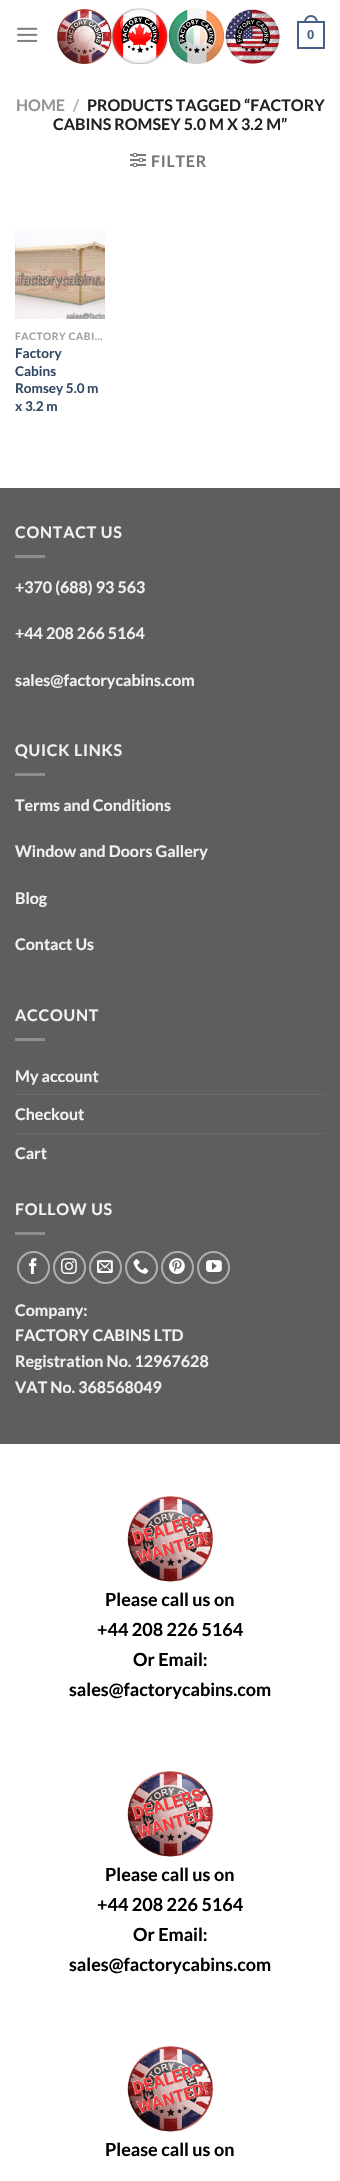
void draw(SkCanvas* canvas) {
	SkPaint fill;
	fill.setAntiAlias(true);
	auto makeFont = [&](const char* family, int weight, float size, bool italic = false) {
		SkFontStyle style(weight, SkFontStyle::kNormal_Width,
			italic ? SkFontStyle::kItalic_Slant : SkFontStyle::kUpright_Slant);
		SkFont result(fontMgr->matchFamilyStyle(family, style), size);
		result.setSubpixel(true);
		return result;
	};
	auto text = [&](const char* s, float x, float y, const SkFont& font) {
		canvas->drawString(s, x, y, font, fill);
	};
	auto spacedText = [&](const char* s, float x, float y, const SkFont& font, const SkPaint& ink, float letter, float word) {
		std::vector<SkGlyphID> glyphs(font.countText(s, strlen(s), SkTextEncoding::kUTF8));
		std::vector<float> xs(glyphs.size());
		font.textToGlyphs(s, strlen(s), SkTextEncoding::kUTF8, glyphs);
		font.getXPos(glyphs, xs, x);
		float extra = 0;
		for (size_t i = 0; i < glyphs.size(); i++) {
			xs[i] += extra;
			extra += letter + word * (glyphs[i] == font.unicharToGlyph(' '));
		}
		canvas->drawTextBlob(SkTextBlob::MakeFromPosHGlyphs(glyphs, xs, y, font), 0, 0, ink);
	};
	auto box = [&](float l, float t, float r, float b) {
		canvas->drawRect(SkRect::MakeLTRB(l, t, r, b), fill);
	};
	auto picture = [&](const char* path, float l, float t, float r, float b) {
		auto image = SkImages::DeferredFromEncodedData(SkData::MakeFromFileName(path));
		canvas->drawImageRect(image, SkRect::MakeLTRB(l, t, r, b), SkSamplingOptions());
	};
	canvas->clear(0xFFFFFFFF);
	picture("image0.png", 17, 27, 38, 42);
	picture("image1.png", 57, 8, 280, 64);
	fill.setStyle(SkPaint::kStroke_Style);
	fill.setStrokeWidth(2);
	fill.setColor(0xFF446084);
	canvas->drawRect(SkRect::MakeLTRB(298, 22, 324, 48), fill);
	fill.setStyle(SkPaint::kFill_Style);
	canvas->drawPath(SkPathBuilder(SkPathFillType::kEvenOdd).moveTo(311, 15).cubicTo(315.5f, 15, 318, 19, 318, 23).lineTo(304, 23).cubicTo(304, 19, 306.5f, 15, 311, 15).close().moveTo(311, 17).cubicTo(314.5f, 17, 316, 20, 316, 23).lineTo(306, 23).cubicTo(306, 20, 307.5f, 17, 311, 17).close().detach(), fill);
	picture("image2.png", 130, 153, 146, 167);
	picture("image3.png", 15, 229, 105, 319);
	fill.setColor(0xFF5E5E5E);
	box(0, 489, 340, 1444);
	fill.setColor(0xFF595959);
	box(0, 488, 340, 489);
	fill.setColor(0xFF8E8E8E);
	box(15, 555, 45, 558);
	box(15, 773, 45, 776);
	box(15, 1038, 45, 1041);
	fill.setColor(0xFF6B6B6B);
	box(15, 1094, 325, 1095);
	box(15, 1133, 325, 1134);
	fill.setColor(0xFF8E8E8E);
	box(15, 1232, 45, 1235);
	fill.setStyle(SkPaint::kStroke_Style);
	fill.setColor(0xFFAFAFAF);
	canvas->drawCircle(33.5f, 1267.5f, 15.5f, fill);
	picture("image4.png", 28, 1258, 37, 1274);
	canvas->drawCircle(69.5f, 1267.5f, 15.5f, fill);
	picture("image5.png", 61, 1258, 77, 1274);
	canvas->drawCircle(105.5f, 1267.5f, 15.5f, fill);
	picture("image6.png", 97, 1260, 113, 1273);
	canvas->drawCircle(141.5f, 1267.5f, 15.5f, fill);
	picture("image7.png", 133, 1259, 149, 1274);
	canvas->drawCircle(177.5f, 1267.5f, 15.5f, fill);
	picture("image8.png", 169, 1258, 185, 1274);
	canvas->drawCircle(213.5f, 1267.5f, 15.5f, fill);
	picture("image9.png", 206, 1260, 222, 1272);
	picture("image10.png", 127, 1496, 214, 1582);
	picture("image10.png", 127, 1771, 214, 1857);
	picture("image11.png", 127, 2046, 214, 2132);
	auto font1 = makeFont("Liberation Sans", 700, 13);
	fill.setStyle(SkPaint::kFill_Style);
	fill.setColor(0xFF446084);
	text("0", 307, 39, font1);
	auto font2 = makeFont("Lato", 700, 16);
	fill.setColor(0xFF949494);
	text("HOME", 16, 111, font2);
	fill.setColor(0xFFB2B2B2);
	text("/", 73, 111, font2);
	fill.setColor(0xFF222222);
	text("PRODUCTS TAGGED “FACTORY", 87, 111, font2);
	text("CABINS ROMSEY 5.0 M X 3.2 M”", 53, 130, font2);
	fill.setColor(0xFF777777);
	spacedText("FILTER", 151, 167, font2, fill, 0.75f, 0);
	auto font3 = makeFont("Lato", 700, 10.25f);
	fill.setColor(0xFFA0A0A0);
	spacedText("FACTORY CABI…", 15, 340, font3, fill, 0.5f, 0);
	auto font4 = makeFont("Lato", 700, 13.5f);
	fill.setColor(0xFF334862);
	text("Factory", 15, 358, font4);
	text("Cabins", 15, 376, font4);
	text("Romsey 5.0 m", 15, 393, font4);
	text("x 3.2 m", 15, 411, font4);
	fill.setColor(0xFFF1F1F1);
	spacedText("CONTACT US", 15, 538, font2, fill, 0.75f, 0);
	text("+370 (688) 93 563", 15, 593, font2);
	text("+44 208 266 5164", 15, 639, font2);
	text("sales@factorycabins.com", 15, 686, font2);
	spacedText("QUICK LINKS", 15, 756, font2, fill, 0.75f, 0);
	text("Terms and Conditions", 15, 811, font2);
	text("Window and Doors Gallery", 15, 857, font2);
	text("Blog", 15, 904, font2);
	text("Contact Us", 15, 950, font2);
	spacedText("ACCOUNT", 15, 1021, font2, fill, 0.75f, 0);
	text("My account", 15, 1082, font2);
	text("Checkout", 15, 1120, font2);
	text("Cart", 15, 1159, font2);
	spacedText("FOLLOW US", 15, 1215, font2, fill, 0.75f, 0);
	text("Company:", 15, 1316, font2);
	text("FACTORY CABINS LTD", 15, 1341, font2);
	text("Registration No. 12967628", 15, 1367, font2);
	text("VAT No. 368568049", 15, 1393, font2);
	auto font5 = makeFont("Lato", 700, 18);
	fill.setColor(0xFF000000);
	text("Please call us on", 105, 1606, font5);
	text("+44 208 226 5164", 97, 1636, font5);
	text("Or Email:", 133, 1666, font5);
	text("sales@factorycabins.com", 69, 1696, font5);
	text("Please call us on", 105, 1881, font5);
	text("+44 208 226 5164", 97, 1911, font5);
	text("Or Email:", 133, 1941, font5);
	text("sales@factorycabins.com", 69, 1971, font5);
	text("Please call us on", 105, 2156, font5);
}
